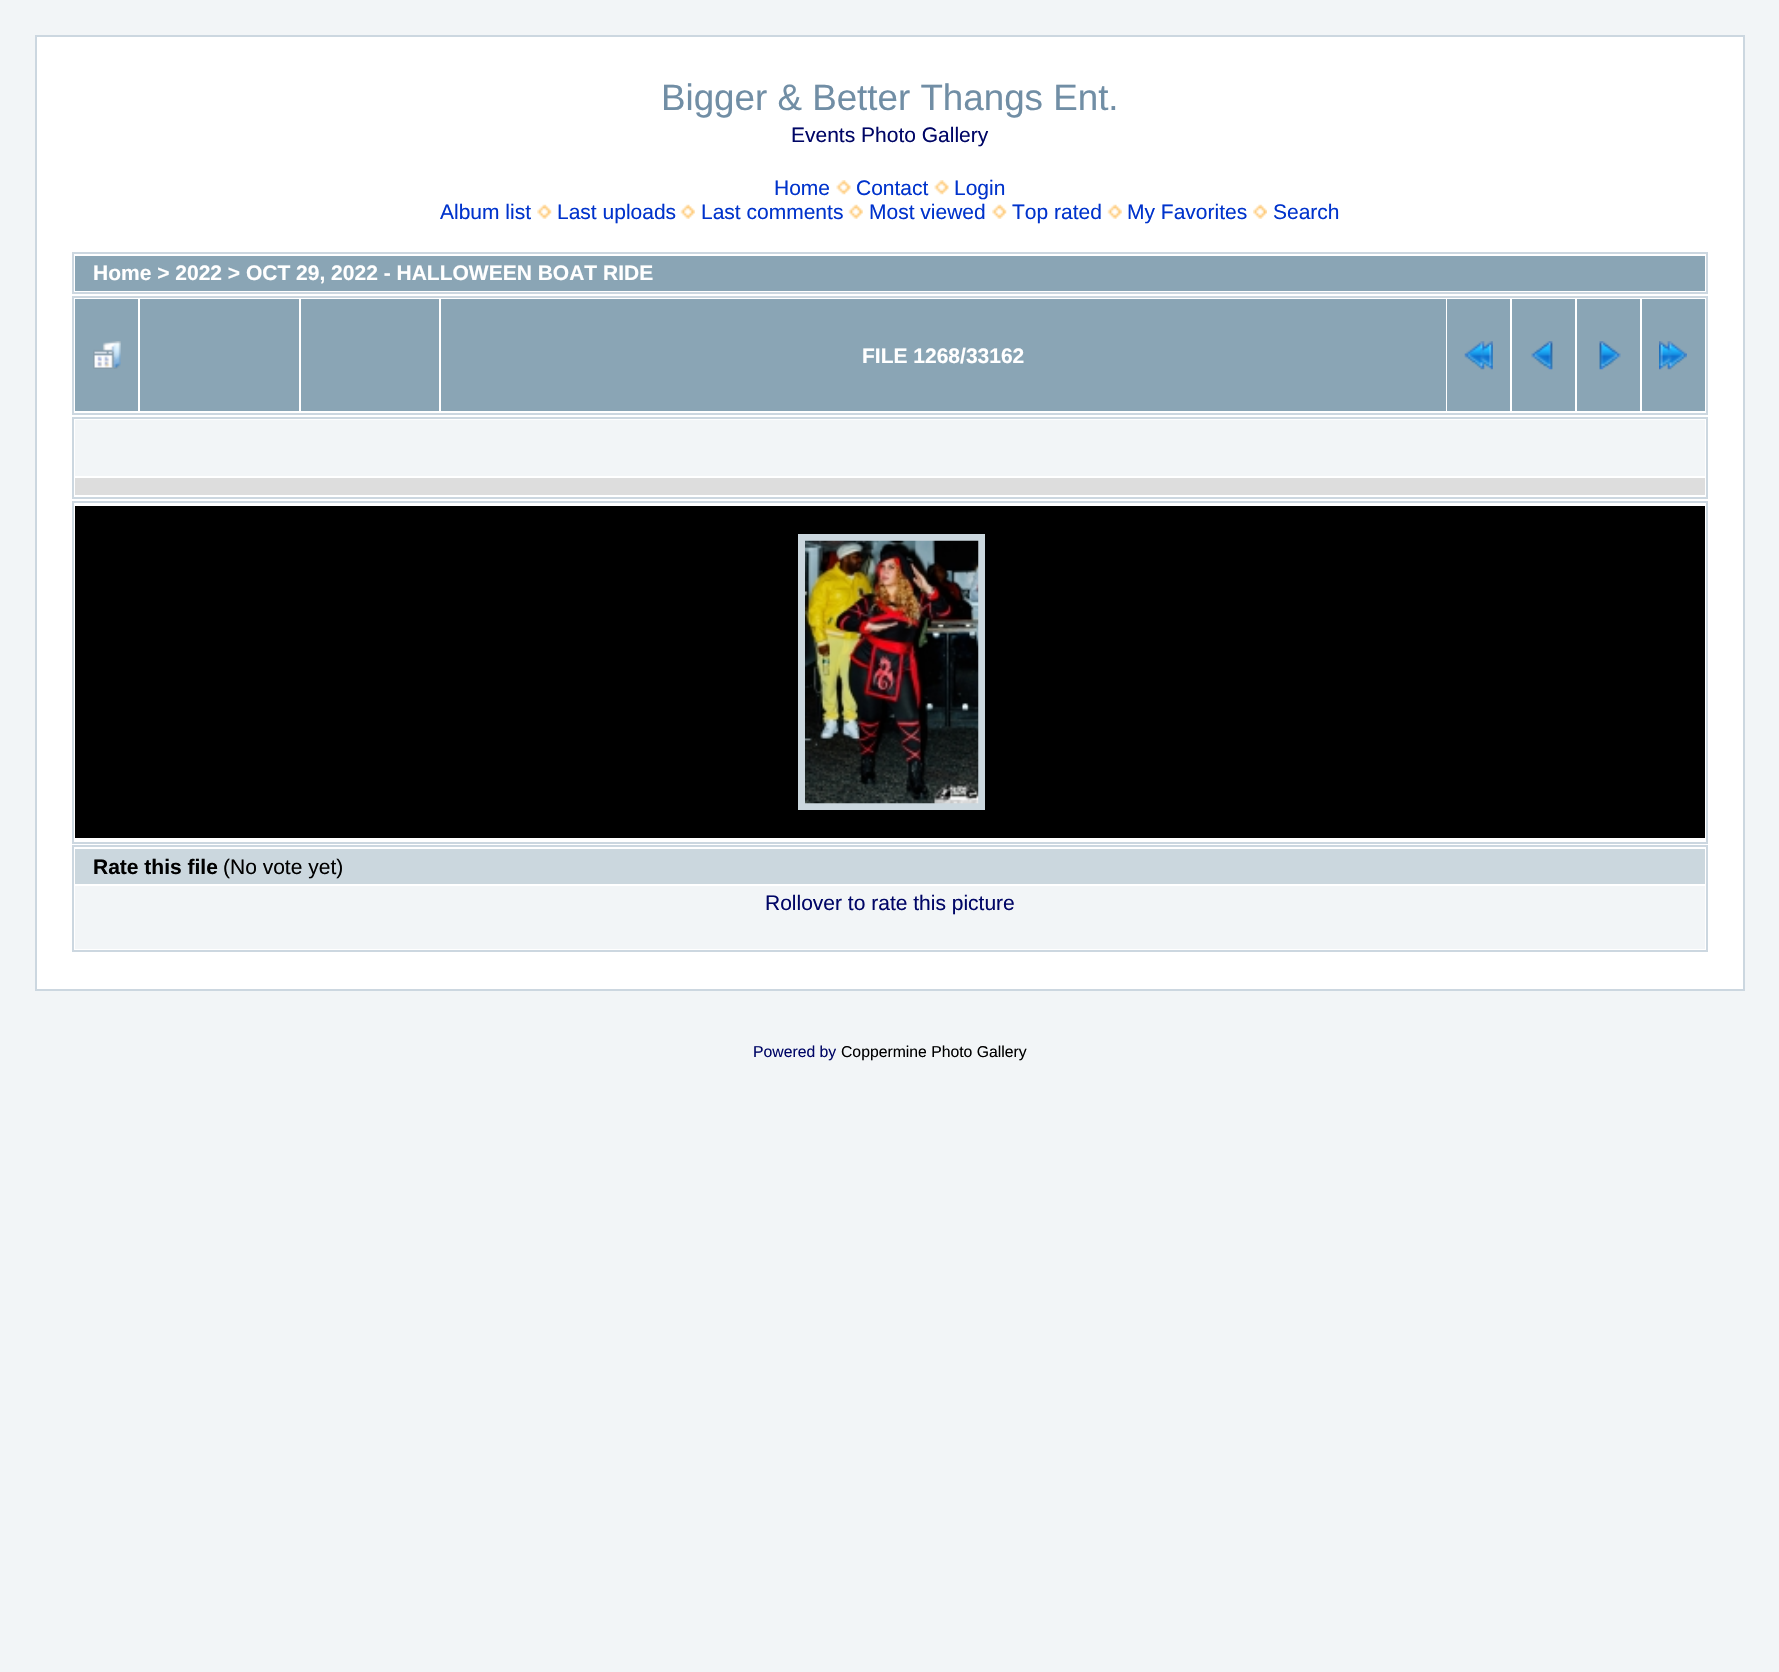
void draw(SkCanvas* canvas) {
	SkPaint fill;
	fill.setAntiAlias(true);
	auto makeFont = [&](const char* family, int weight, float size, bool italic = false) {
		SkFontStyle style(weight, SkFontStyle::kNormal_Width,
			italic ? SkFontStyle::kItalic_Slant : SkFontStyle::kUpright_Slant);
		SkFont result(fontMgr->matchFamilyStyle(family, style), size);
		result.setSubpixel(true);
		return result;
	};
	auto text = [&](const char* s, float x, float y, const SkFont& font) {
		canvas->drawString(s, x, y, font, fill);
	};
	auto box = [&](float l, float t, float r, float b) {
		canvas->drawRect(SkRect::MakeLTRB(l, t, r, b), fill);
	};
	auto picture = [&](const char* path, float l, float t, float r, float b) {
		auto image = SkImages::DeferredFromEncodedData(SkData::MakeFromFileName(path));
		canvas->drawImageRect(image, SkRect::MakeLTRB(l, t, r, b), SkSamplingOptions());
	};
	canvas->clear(0xFFF2F5F7);
	fill.setColor(0xFFFFFFFF);
	canvas->drawRect(SkRect::MakeLTRB(36, 36, 1744, 990), fill);
	fill.setStyle(SkPaint::kStroke_Style);
	fill.setStrokeWidth(2);
	fill.setColor(0xFFCCD7E0);
	canvas->drawRect(SkRect::MakeLTRB(36, 36, 1744, 990), fill);
	picture("image0.png", 836, 180, 851, 195);
	picture("image1.png", 934, 180, 949, 195);
	picture("image2.png", 537, 204, 552, 219);
	picture("image3.png", 680, 204, 695, 219);
	picture("image3.png", 848, 204, 863, 219);
	picture("image2.png", 992, 204, 1007, 219);
	picture("image4.png", 1107, 204, 1122, 219);
	picture("image5.png", 1253, 204, 1267, 219);
	canvas->drawRect(SkRect::MakeLTRB(73, 253, 1707, 293), fill);
	fill.setStyle(SkPaint::kFill_Style);
	fill.setColor(0xFF8AA5B5);
	box(75, 256, 1705, 291);
	fill.setStyle(SkPaint::kStroke_Style);
	fill.setColor(0xFFCCD7E0);
	canvas->drawRect(SkRect::MakeLTRB(73, 297, 1707, 414), fill);
	fill.setStyle(SkPaint::kFill_Style);
	fill.setColor(0xFF8AA5B5);
	box(75, 299, 138, 411);
	picture("image6.png", 93, 341, 121, 369);
	box(140, 299, 299, 411);
	box(301, 299, 439, 411);
	box(441, 299, 1446, 411);
	box(1447, 299, 1510, 411);
	picture("image7.png", 1464, 341, 1493, 370);
	box(1512, 299, 1575, 411);
	picture("image8.png", 1531, 341, 1553, 370);
	box(1577, 299, 1640, 411);
	picture("image9.png", 1599, 341, 1621, 370);
	box(1642, 299, 1705, 411);
	picture("image10.png", 1659, 341, 1687, 370);
	fill.setStyle(SkPaint::kStroke_Style);
	fill.setColor(0xFFCCD7E0);
	canvas->drawRect(SkRect::MakeLTRB(73, 418, 1707, 498), fill);
	fill.setStyle(SkPaint::kFill_Style);
	fill.setColor(0xFFF2F5F7);
	box(75, 420, 1705, 476);
	fill.setColor(0xFFDDDDDD);
	box(75, 478, 1705, 495);
	fill.setStyle(SkPaint::kStroke_Style);
	fill.setColor(0xFFCCD7E0);
	canvas->drawRect(SkRect::MakeLTRB(73, 502, 1707, 843), fill);
	fill.setStyle(SkPaint::kFill_Style);
	fill.setColor(0xFF000000);
	box(75, 506, 1705, 838);
	fill.setStyle(SkPaint::kStroke_Style);
	fill.setStrokeWidth(7);
	fill.setColor(0xFFCBD7DE);
	canvas->drawRect(SkRect::MakeLTRB(801.5f, 537.5f, 981.5f, 806.5f), fill);
	picture("image11.png", 805, 540, 979, 804);
	fill.setStrokeWidth(2);
	fill.setColor(0xFFCCD7E0);
	canvas->drawRect(SkRect::MakeLTRB(73, 846, 1707, 951), fill);
	fill.setStyle(SkPaint::kFill_Style);
	fill.setColor(0xFFCBD7DE);
	box(75, 849, 1705, 884);
	fill.setColor(0xFFF2F5F7);
	box(75, 886, 1705, 949);
	auto font1 = makeFont("Liberation Sans", 400, 36.75f);
	fill.setColor(0xFF718EA5);
	text("Bigger & Better Thangs Ent.", 661, 110, font1);
	auto font2 = makeFont("Liberation Sans", 400, 21);
	fill.setColor(0xFF000666);
	text("Events Photo Gallery", 791, 142, font2);
	fill.setColor(0xFF0033CC);
	text("Home", 774, 195, font2);
	text("Contact", 856, 195, font2);
	text("Login", 954, 195, font2);
	text("Album list", 440, 219, font2);
	text("Last uploads", 557, 219, font2);
	text("Last comments", 701, 219, font2);
	text("Most viewed", 869, 219, font2);
	text("Top rated", 1012, 219, font2);
	text("My Favorites", 1127, 219, font2);
	text("Search", 1273, 219, font2);
	auto font3 = makeFont("Liberation Sans", 700, 21);
	fill.setColor(0xFFFFFFFF);
	text("Home > 2022 > OCT 29, 2022 - HALLOWEEN BOAT RIDE", 93, 280, font3);
	text("FILE 1268/33162", 862, 363, font3);
	fill.setColor(0xFF000000);
	text("Rate this file", 93, 874, font3);
	text("(No vote yet)", 223, 874, font2);
	fill.setColor(0xFF000666);
	text("Rollover to rate this picture", 765, 910, font2);
	auto font4 = makeFont("Liberation Sans", 400, 15.75f);
	text("Powered by", 753, 1057, font4);
	fill.setColor(0xFF000000);
	text("Coppermine Photo Gallery", 841, 1057, font4);
}
